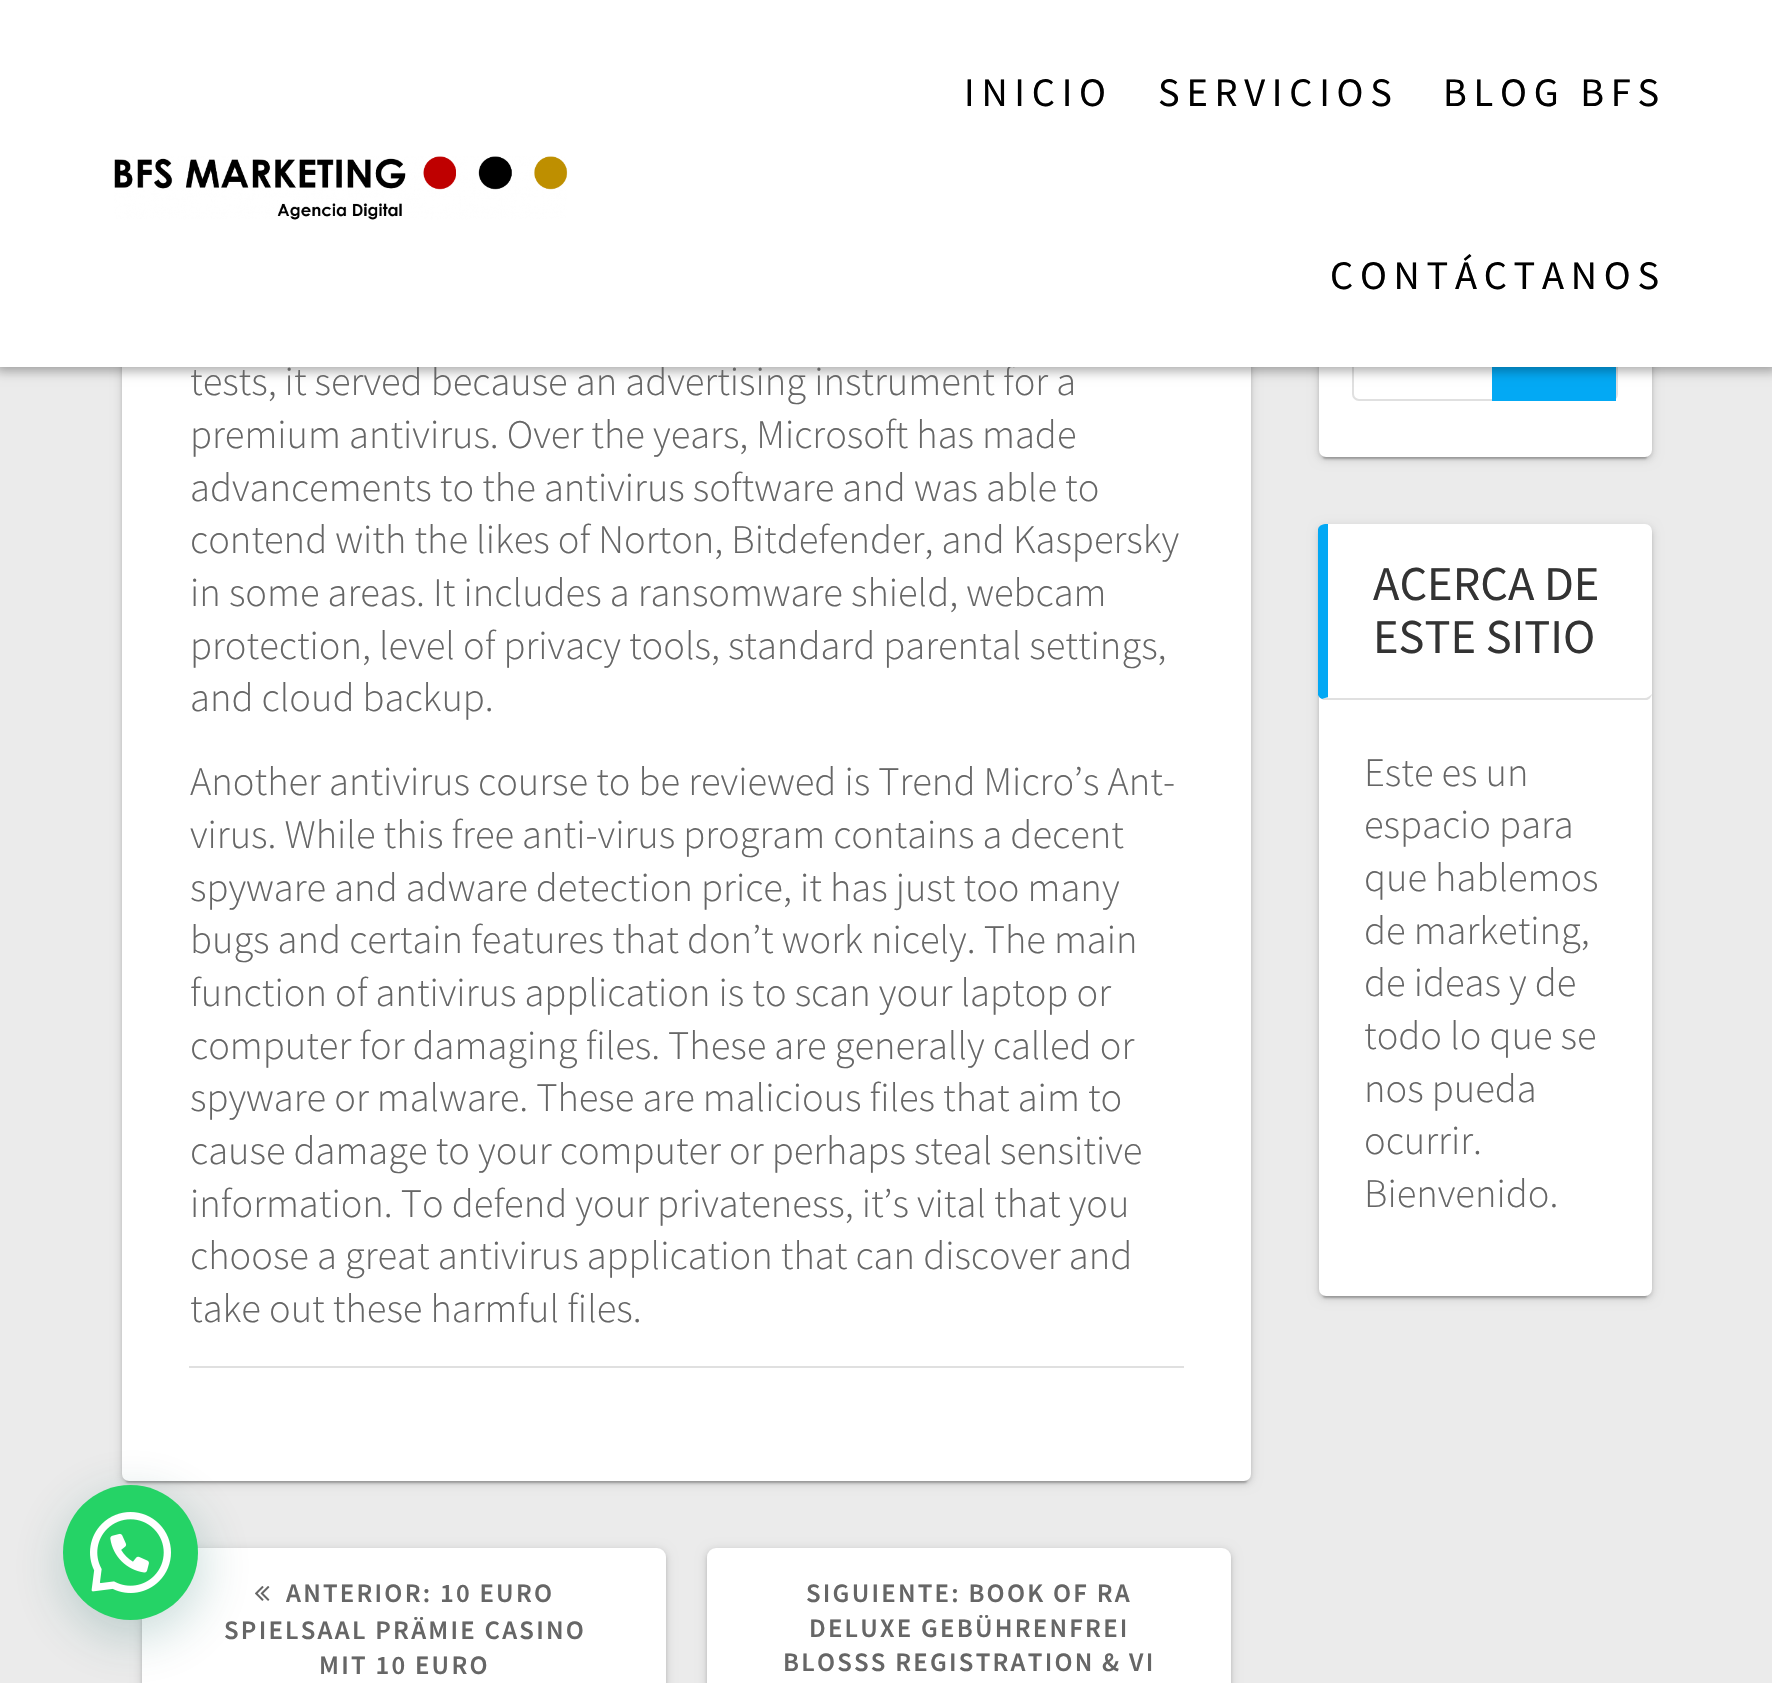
void draw(SkCanvas* canvas) {
	SkPaint fill;
	fill.setAntiAlias(true);
	auto makeFont = [&](const char* family, int weight, float size, bool italic = false) {
		SkFontStyle style(weight, SkFontStyle::kNormal_Width,
			italic ? SkFontStyle::kItalic_Slant : SkFontStyle::kUpright_Slant);
		SkFont result(fontMgr->matchFamilyStyle(family, style), size);
		result.setSubpixel(true);
		return result;
	};
	auto text = [&](const char* s, float x, float y, const SkFont& font) {
		canvas->drawString(s, x, y, font, fill);
	};
	auto spacedText = [&](const char* s, float x, float y, const SkFont& font, const SkPaint& ink, float letter, float word) {
		std::vector<SkGlyphID> glyphs(font.countText(s, strlen(s), SkTextEncoding::kUTF8));
		std::vector<float> xs(glyphs.size());
		font.textToGlyphs(s, strlen(s), SkTextEncoding::kUTF8, glyphs);
		font.getXPos(glyphs, xs, x);
		float extra = 0;
		for (size_t i = 0; i < glyphs.size(); i++) {
			xs[i] += extra;
			extra += letter + word * (glyphs[i] == font.unicharToGlyph(' '));
		}
		canvas->drawTextBlob(SkTextBlob::MakeFromPosHGlyphs(glyphs, xs, y, font), 0, 0, ink);
	};
	auto box = [&](float l, float t, float r, float b) {
		canvas->drawRect(SkRect::MakeLTRB(l, t, r, b), fill);
	};
	auto roundBox = [&](float l, float t, float r, float b, float radius) {
		canvas->drawRoundRect(SkRect::MakeLTRB(l, t, r, b), radius, radius, fill);
	};
	auto picture = [&](const char* path, float l, float t, float r, float b) {
		auto image = SkImages::DeferredFromEncodedData(SkData::MakeFromFileName(path));
		canvas->drawImageRect(image, SkRect::MakeLTRB(l, t, r, b), SkSamplingOptions());
	};
	canvas->clear(0xFFEBEBEB);
	fill.setColor(0x1F000000);
	fill.setMaskFilter(SkMaskFilter::MakeBlur(kNormal_SkBlurStyle, 5.5f));
	canvas->drawRoundRect(SkRect::MakeLTRB(122, -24, 1251, 1483), 7, 7, fill);
	fill.setMaskFilter(nullptr);
	fill.setColor(0x33000000);
	fill.setMaskFilter(SkMaskFilter::MakeBlur(kNormal_SkBlurStyle, 1));
	canvas->drawRoundRect(SkRect::MakeLTRB(126, -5, 1247, 1483), 2, 2, fill);
	fill.setMaskFilter(nullptr);
	fill.setColor(0x24000000);
	fill.setMaskFilter(SkMaskFilter::MakeBlur(kNormal_SkBlurStyle, 2));
	canvas->drawRoundRect(SkRect::MakeLTRB(122, -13, 1251, 1483), 7, 7, fill);
	fill.setMaskFilter(nullptr);
	fill.setColor(0xFFFFFFFF);
	roundBox(122, -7, 1251, 1481, 7);
	fill.setColor(0x1F000000);
	fill.setMaskFilter(SkMaskFilter::MakeBlur(kNormal_SkBlurStyle, 5.5f));
	canvas->drawRoundRect(SkRect::MakeLTRB(1319, 97, 1652, 459), 7, 7, fill);
	fill.setMaskFilter(nullptr);
	fill.setColor(0x33000000);
	fill.setMaskFilter(SkMaskFilter::MakeBlur(kNormal_SkBlurStyle, 1));
	canvas->drawRoundRect(SkRect::MakeLTRB(1323, 106, 1647, 459), 2, 2, fill);
	fill.setMaskFilter(nullptr);
	fill.setColor(0x24000000);
	fill.setMaskFilter(SkMaskFilter::MakeBlur(kNormal_SkBlurStyle, 2));
	canvas->drawRoundRect(SkRect::MakeLTRB(1319, 97, 1652, 459), 7, 7, fill);
	fill.setMaskFilter(nullptr);
	fill.setColor(0xFFFFFFFF);
	roundBox(1319, 95, 1652, 457, 7);
	fill.setStyle(SkPaint::kStroke_Style);
	fill.setStrokeWidth(2);
	fill.setColor(0xFFE0E0E0);
	canvas->drawRoundRect(SkRect::MakeLTRB(1353, 307, 1617, 400), 6, 6, fill);
	fill.setStyle(SkPaint::kFill_Style);
	fill.setColor(0xFF03A9F4);
	box(1492, 367, 1616, 401);
	fill.setColor(0x54000000);
	fill.setMaskFilter(SkMaskFilter::MakeBlur(kNormal_SkBlurStyle, 5.5f));
	canvas->drawRect(SkRect::MakeLTRB(-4, -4, 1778, 371), fill);
	fill.setMaskFilter(nullptr);
	fill.setColor(0x1F000000);
	fill.setMaskFilter(SkMaskFilter::MakeBlur(kNormal_SkBlurStyle, 5.5f));
	canvas->drawRoundRect(SkRect::MakeLTRB(142, 1550, 666, 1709), 9, 9, fill);
	fill.setMaskFilter(nullptr);
	fill.setColor(0x24000000);
	fill.setMaskFilter(SkMaskFilter::MakeBlur(kNormal_SkBlurStyle, 2));
	canvas->drawRoundRect(SkRect::MakeLTRB(142, 1550, 666, 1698), 9, 9, fill);
	fill.setMaskFilter(nullptr);
	fill.setColor(0xFFFFFFFF);
	roundBox(142, 1548, 666, 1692, 9);
	picture("image2.png", 255, 1586, 270, 1601);
	fill.setColor(0x3D075E54);
	fill.setMaskFilter(SkMaskFilter::MakeBlur(kNormal_SkBlurStyle, 27));
	canvas->drawRoundRect(SkRect::MakeLTRB(65, 1499, 200, 1634), 67.5f, 67.5f, fill);
	fill.setMaskFilter(nullptr);
	fill.setColor(0xFF25D366);
	canvas->drawCircle(130.5f, 1552.5f, 67.5f, fill);
	picture("image1.png", 90, 1512, 171, 1593);
	fill.setColor(0xFFE0E0E0);
	box(189, 1366, 1184, 1368);
	fill.setColor(0x1F000000);
	fill.setMaskFilter(SkMaskFilter::MakeBlur(kNormal_SkBlurStyle, 5.5f));
	canvas->drawRoundRect(SkRect::MakeLTRB(707, 1550, 1231, 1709), 9, 9, fill);
	fill.setMaskFilter(nullptr);
	fill.setColor(0x24000000);
	fill.setMaskFilter(SkMaskFilter::MakeBlur(kNormal_SkBlurStyle, 2));
	canvas->drawRoundRect(SkRect::MakeLTRB(707, 1550, 1231, 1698), 9, 9, fill);
	fill.setMaskFilter(nullptr);
	fill.setColor(0xFFFFFFFF);
	roundBox(707, 1548, 1231, 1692, 9);
	fill.setColor(0x1F000000);
	fill.setMaskFilter(SkMaskFilter::MakeBlur(kNormal_SkBlurStyle, 5.5f));
	canvas->drawRoundRect(SkRect::MakeLTRB(1319, 527, 1652, 1298), 7, 7, fill);
	fill.setMaskFilter(nullptr);
	fill.setColor(0x33000000);
	fill.setMaskFilter(SkMaskFilter::MakeBlur(kNormal_SkBlurStyle, 1));
	canvas->drawRoundRect(SkRect::MakeLTRB(1323, 536, 1647, 1298), 2, 2, fill);
	fill.setMaskFilter(nullptr);
	fill.setColor(0x24000000);
	fill.setMaskFilter(SkMaskFilter::MakeBlur(kNormal_SkBlurStyle, 2));
	canvas->drawRoundRect(SkRect::MakeLTRB(1319, 527, 1652, 1298), 7, 7, fill);
	fill.setMaskFilter(nullptr);
	fill.setColor(0xFFFFFFFF);
	roundBox(1319, 524, 1652, 1296, 7);
	fill.setColor(0xFFE0E0E0);
	canvas->drawPath(SkPathBuilder().moveTo(1323, 700).lineTo(1322, 699).lineTo(1328, 697).lineTo(1328, 698).lineTo(1645, 698).cubicTo(1647, 698, 1650, 696, 1652, 694).cubicTo(1652, 696, 1649, 700, 1647, 700).close().detach(), fill);
	fill.setColor(0xFF03A8F4);
	canvas->drawPath(SkPathBuilder().moveTo(1318, 529).cubicTo(1320, 524, 1324, 524, 1328, 524).lineTo(1328, 697).lineTo(1322, 699).cubicTo(1320, 698, 1319, 697, 1318, 695).close().detach(), fill);
	auto font1 = makeFont("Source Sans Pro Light", 300, 40.5f);
	fill.setColor(0xFF666666);
	text("tests, it served because an advertising instrument for a", 190, 395, font1);
	fill.setColor(0xFFFFFFFF);
	box(0, 0, 1772, 367);
	auto font2 = makeFont("Source Sans Pro", 400, 40.5f);
	fill.setColor(0xFF000000);
	spacedText("CONTÁCTANOS", 1330, 289, font2, fill, 6.75f, 0);
	spacedText("BLOG BFS", 1443, 106, font2, fill, 6.75f, 0);
	spacedText("SERVICIOS", 1158, 106, font2, fill, 6.75f, 0);
	spacedText("INICIO", 964, 106, font2, fill, 6.75f, 0);
	picture("image0.png", 114, 156, 568, 220);
	fill.setColor(0xFF666666);
	text("premium antivirus. Over the years, Microsoft has made", 190, 448, font1);
	text("advancements to the antivirus software and was able to", 190, 501, font1);
	text("contend with the likes of Norton, Bitdefender, and Kaspersky", 190, 553, font1);
	text("in some areas. It includes a ransomware shield, webcam", 190, 606, font1);
	text("protection, level of privacy tools, standard parental settings,", 190, 659, font1);
	text("and cloud backup.", 190, 711, font1);
	text("Another antivirus course to be reviewed is Trend Micro’s Ant-", 190, 795, font1);
	text("virus. While this free anti-virus program contains a decent", 190, 848, font1);
	text("spyware and adware detection price, it has just too many", 190, 901, font1);
	text("bugs and certain features that don’t work nicely. The main", 190, 953, font1);
	text("function of antivirus application is to scan your laptop or", 190, 1006, font1);
	text("computer for damaging files. These are generally called or", 190, 1059, font1);
	text("spyware or malware. These are malicious files that aim to", 190, 1111, font1);
	text("cause damage to your computer or perhaps steal sensitive", 190, 1164, font1);
	text("information. To defend your privateness, it’s vital that you", 190, 1217, font1);
	text("choose a great antivirus application that can discover and", 190, 1269, font1);
	text("take out these harmful files.", 190, 1322, font1);
	auto font3 = makeFont("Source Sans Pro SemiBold", 600, 26.75f);
	spacedText("ANTERIOR: 10 EURO", 286, 1602, font3, fill, 2.25f, 0);
	spacedText("SPIELSAAL PRÄMIE CASINO", 224, 1639, font3, fill, 2.25f, 0);
	spacedText("MIT 10 EURO", 319, 1674, font3, fill, 2.25f, 0);
	spacedText("SIGUIENTE: BOOK OF RA", 806, 1602, font3, fill, 2.25f, 0);
	spacedText("DELUXE GEBÜHRENFREI", 809, 1637, font3, fill, 2.25f, 0);
	spacedText("BLOSSS REGISTRATION & VI", 783, 1671, font3, fill, 2.25f, 0);
	auto font4 = makeFont("Source Sans Pro", 400, 48.5f);
	fill.setColor(0xFF333333);
	text("ACERCA DE", 1373, 600, font4);
	text("ESTE SITIO", 1373, 653, font4);
	fill.setColor(0xFF666666);
	text("Este es un", 1364, 786, font1);
	text("espacio para", 1364, 838, font1);
	text("que hablemos", 1364, 891, font1);
	text("de marketing,", 1364, 944, font1);
	text("de ideas y de", 1364, 996, font1);
	text("todo lo que se", 1364, 1049, font1);
	text("nos pueda", 1364, 1102, font1);
	text("ocurrir.", 1364, 1154, font1);
	text("Bienvenido.", 1364, 1207, font1);
}
